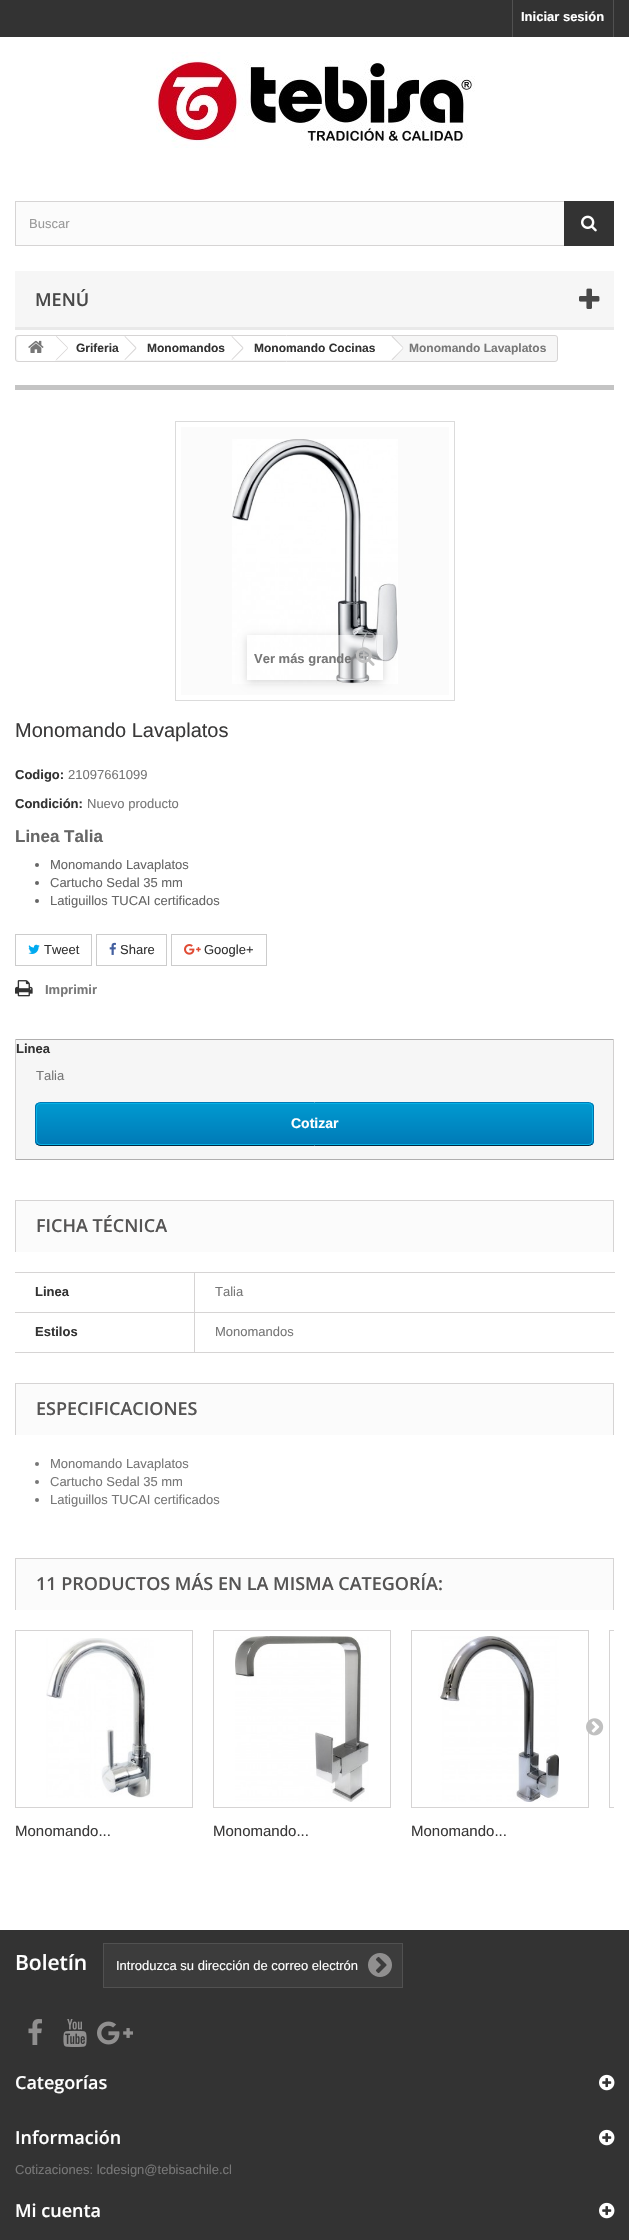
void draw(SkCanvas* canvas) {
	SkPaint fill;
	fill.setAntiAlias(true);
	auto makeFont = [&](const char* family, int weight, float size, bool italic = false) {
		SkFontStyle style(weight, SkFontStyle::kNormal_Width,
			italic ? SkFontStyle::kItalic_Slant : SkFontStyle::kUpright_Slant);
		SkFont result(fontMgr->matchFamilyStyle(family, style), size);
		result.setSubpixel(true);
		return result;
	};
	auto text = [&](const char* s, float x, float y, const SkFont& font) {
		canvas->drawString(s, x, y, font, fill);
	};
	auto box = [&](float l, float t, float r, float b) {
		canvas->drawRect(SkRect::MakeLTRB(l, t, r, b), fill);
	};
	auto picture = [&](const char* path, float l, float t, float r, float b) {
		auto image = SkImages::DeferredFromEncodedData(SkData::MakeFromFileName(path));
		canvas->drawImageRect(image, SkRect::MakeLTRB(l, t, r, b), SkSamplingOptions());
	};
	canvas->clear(0xFFFFFFFF);
	fill.setColor(0xFF333333);
	box(0, 0, 629, 37);
	fill.setColor(0xFF515151);
	box(613, 0, 614, 37);
	box(512, 0, 513, 37);
	picture("image0.png", 156, 52, 475, 148);
	fill.setColor(0xFFFBFBFB);
	box(16, 202, 564, 245);
	fill.setStyle(SkPaint::kStroke_Style);
	fill.setStrokeWidth(1);
	fill.setColor(0xFFD6D4D4);
	canvas->drawRect(SkRect::MakeLTRB(15.5f, 201.5f, 613.5f, 245.5f), fill);
	fill.setStyle(SkPaint::kFill_Style);
	fill.setColor(0xFF333333);
	box(564, 201, 614, 246);
	picture("image1.png", 581, 215, 597, 232);
	fill.setColor(0xFFF6F6F6);
	box(15, 271, 614, 327);
	fill.setColor(0xFFE9E9E9);
	box(15, 327, 614, 330);
	picture("image2.png", 579, 288, 600, 309);
	fill.setColor(0xFFF6F6F6);
	canvas->drawRoundRect(SkRect::MakeLTRB(15.5f, 335.5f, 557.5f, 361.5f), 2.5f, 2.5f, fill);
	fill.setStyle(SkPaint::kStroke_Style);
	fill.setColor(0xFFD6D4D4);
	canvas->drawRoundRect(SkRect::MakeLTRB(15.5f, 335.5f, 557.5f, 361.5f), 2.5f, 2.5f, fill);
	fill.setStyle(SkPaint::kFill_Style);
	fill.setColor(0xFFFFFFFF);
	canvas->drawPath(SkPathBuilder().moveTo(20, 336).lineTo(55, 336).lineTo(55, 361).lineTo(20, 361).cubicTo(18.5f, 361, 17, 359.5f, 17, 358).lineTo(17, 339).cubicTo(17, 337.5f, 18.5f, 336, 20, 336).close().detach(), fill);
	picture("image3.png", 28, 340, 44, 353);
	box(55, 336, 125, 360);
	fill.setColor(0xFFD6D4D4);
	canvas->drawPath(SkPathBuilder().moveTo(56.5f, 336).lineTo(68, 347.5f).lineTo(67.5f, 348).lineTo(56, 336.5f).close().moveTo(67.5f, 348).lineTo(68, 348.5f).lineTo(56.5f, 360).lineTo(56, 359.5f).close().detach(), fill);
	fill.setColor(0xFFFFFFFF);
	canvas->drawPath(SkPathBuilder().moveTo(136, 336.5f).lineTo(145.5f, 346.5f).cubicTo(146.5f, 347.5f, 146.5f, 348.5f, 145.5f, 349.5f).lineTo(136, 359.5f).cubicTo(135, 360, 133.5f, 360, 133, 359.5f).lineTo(123, 349.5f).cubicTo(122.5f, 348.5f, 122.5f, 347.5f, 123, 346.5f).lineTo(133, 336.5f).cubicTo(133.5f, 336, 135, 336, 136, 336.5f).close().detach(), fill);
	box(125, 336, 232, 360);
	fill.setColor(0xFFD6D4D4);
	canvas->drawPath(SkPathBuilder().moveTo(125, 336).lineTo(136.5f, 347.5f).lineTo(135.5f, 348).lineTo(124.5f, 336.5f).close().moveTo(135.5f, 348).lineTo(136.5f, 348.5f).lineTo(125, 360).lineTo(124.5f, 359.5f).close().detach(), fill);
	fill.setColor(0xFFFFFFFF);
	canvas->drawPath(SkPathBuilder().moveTo(243, 336.5f).lineTo(252.5f, 346.5f).cubicTo(253.5f, 347.5f, 253.5f, 348.5f, 252.5f, 349.5f).lineTo(243, 359.5f).cubicTo(242, 360, 240.5f, 360, 240, 359.5f).lineTo(230, 349.5f).cubicTo(229.5f, 348.5f, 229.5f, 347.5f, 230, 346.5f).lineTo(240, 336.5f).cubicTo(240.5f, 336, 242, 336, 243, 336.5f).close().detach(), fill);
	box(232, 336, 391, 360);
	fill.setColor(0xFFD6D4D4);
	canvas->drawPath(SkPathBuilder().moveTo(232, 336).lineTo(243.5f, 347.5f).lineTo(242.5f, 348).lineTo(231.5f, 336.5f).close().moveTo(242.5f, 348).lineTo(243.5f, 348.5f).lineTo(232, 360).lineTo(231.5f, 359.5f).close().detach(), fill);
	fill.setColor(0xFFFFFFFF);
	canvas->drawPath(SkPathBuilder().moveTo(393, 336.5f).lineTo(403, 346.5f).cubicTo(404, 347.5f, 404, 348.5f, 403, 349.5f).lineTo(393, 359.5f).cubicTo(392.5f, 360, 391, 360, 390.5f, 359.5f).lineTo(380.5f, 349.5f).cubicTo(379.5f, 348.5f, 379.5f, 347.5f, 380.5f, 346.5f).lineTo(390.5f, 336.5f).cubicTo(391, 336, 392.5f, 336, 393, 336.5f).close().detach(), fill);
	fill.setColor(0xFFD6D4D4);
	canvas->drawPath(SkPathBuilder().moveTo(392.5f, 336).lineTo(403.5f, 347.5f).lineTo(403, 348).lineTo(391.5f, 336.5f).close().moveTo(403, 348).lineTo(403.5f, 348.5f).lineTo(392.5f, 360).lineTo(391.5f, 359.5f).close().detach(), fill);
	fill.setColor(0xFFC4C4C4);
	box(15, 385, 614, 390);
	fill.setStyle(SkPaint::kStroke_Style);
	fill.setColor(0xFFDBDBDB);
	canvas->drawRect(SkRect::MakeLTRB(175.5f, 421.5f, 454.5f, 700.5f), fill);
	fill.setStyle(SkPaint::kFill_Style);
	fill.setColor(0xFFFBFBFB);
	box(181, 427, 449, 695);
	picture("image4.png", 232, 439, 398, 684);
	canvas->save();
	canvas->clipPath(SkPathBuilder(SkPathFillType::kEvenOdd).moveTo(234, 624).lineTo(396, 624).lineTo(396, 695).lineTo(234, 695).close().moveTo(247, 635).lineTo(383, 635).lineTo(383, 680).lineTo(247, 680).close().detach(), true);
	fill.setColor(0x29000000);
	fill.setMaskFilter(SkMaskFilter::MakeBlur(kNormal_SkBlurStyle, 4));
	canvas->drawRect(SkRect::MakeLTRB(247, 637, 383, 682), fill);
	fill.setMaskFilter(nullptr);
	canvas->restore();
	fill.setColor(0x80FFFFFF);
	box(336, 635, 383, 680);
	picture("image5.png", 356, 647, 375, 666);
	fill.setColor(0xFF666666);
	canvas->drawCircle(37, 865, 2, fill);
	canvas->drawCircle(37, 883, 2, fill);
	canvas->drawCircle(37, 901, 2, fill);
	fill.setStyle(SkPaint::kStroke_Style);
	fill.setColor(0xFFCCCCCC);
	canvas->drawRect(SkRect::MakeLTRB(15.5f, 934.5f, 91.5f, 965.5f), fill);
	picture("image6.png", 28, 944, 40, 954);
	canvas->drawRect(SkRect::MakeLTRB(96.5f, 934.5f, 166.5f, 965.5f), fill);
	picture("image7.png", 109, 942, 116, 955);
	canvas->drawRect(SkRect::MakeLTRB(171.5f, 934.5f, 266.5f, 965.5f), fill);
	picture("image8.png", 184, 944, 201, 955);
	picture("image9.png", 15, 980, 33, 997);
	fill.setStyle(SkPaint::kFill_Style);
	fill.setColor(0xFFF6F6F6);
	box(16, 1040, 613, 1159);
	fill.setColor(0xFFB0AFAF);
	box(15, 1039, 614, 1040);
	fill.setColor(0xFFD2D0D0);
	box(613, 1039, 614, 1160);
	fill.setColor(0xFFB0AFAF);
	box(15, 1159, 614, 1160);
	fill.setColor(0xFFD2D0D0);
	box(15, 1039, 16, 1160);
	canvas->save();
	canvas->clipPath(SkPathBuilder().moveTo(40, 1102).lineTo(589, 1102).cubicTo(592, 1102, 594, 1104, 594, 1107).lineTo(594, 1141).cubicTo(594, 1144, 592, 1146, 589, 1146).lineTo(40, 1146).cubicTo(37, 1146, 35, 1144, 35, 1141).lineTo(35, 1107).cubicTo(35, 1104, 37, 1102, 40, 1102).close().detach(), true);
	{
		const SkColor colors[] = {0xFF009AD0, 0xFF007AB7};
		const float stops[] = {0, 1};
		const SkPoint ends[] = {{315, 1103}, {315, 1145}};
		fill.setShader(SkGradientShader::MakeLinear(ends, colors, stops, 2, SkTileMode::kClamp));
		fill.setAlpha(255);
	}
	box(35, 1103, 594, 1145);
	canvas->restore();
	fill.setStyle(SkPaint::kStroke_Style);
	fill.setShader(nullptr);
	fill.setColor(0xFF0079B6);
	canvas->drawPath(SkPathBuilder().moveTo(37, 1104).cubicTo(37.5f, 1103, 39, 1102.5f, 40, 1102.5f).lineTo(589, 1102.5f).cubicTo(590, 1102.5f, 591.5f, 1103, 592, 1104).detach(), fill);
	fill.setColor(0xFF006FA8);
	canvas->drawPath(SkPathBuilder().moveTo(592, 1104).cubicTo(593, 1104.5f, 593.5f, 1106, 593.5f, 1107).lineTo(593.5f, 1141).cubicTo(593.5f, 1142, 593, 1143.5f, 592, 1144).detach(), fill);
	fill.setColor(0xFF012740);
	canvas->drawPath(SkPathBuilder().moveTo(592, 1144).cubicTo(591.5f, 1145, 590, 1145.5f, 589, 1145.5f).lineTo(40, 1145.5f).cubicTo(39, 1145.5f, 37.5f, 1145, 37, 1144).detach(), fill);
	fill.setColor(0xFF006FA8);
	canvas->drawPath(SkPathBuilder().moveTo(37, 1144).cubicTo(36, 1143.5f, 35.5f, 1142, 35.5f, 1141).lineTo(35.5f, 1107).cubicTo(35.5f, 1106, 36, 1104.5f, 37, 1104).detach(), fill);
	fill.setColor(0xFF06B2E6);
	canvas->drawRoundRect(SkRect::MakeLTRB(36.5f, 1103.5f, 592.5f, 1144.5f), 4.5f, 4.5f, fill);
	fill.setStyle(SkPaint::kFill_Style);
	fill.setColor(0xFFFBFBFB);
	box(16, 1201, 613, 1252);
	fill.setColor(0xFFD6D4D4);
	box(15, 1200, 614, 1201);
	box(613, 1200, 614, 1252);
	box(15, 1200, 16, 1252);
	box(15, 1352, 614, 1353);
	box(15, 1272, 615, 1273);
	box(15, 1312, 615, 1313);
	box(194, 1272, 195, 1353);
	fill.setColor(0xFFFBFBFB);
	box(16, 1384, 613, 1435);
	fill.setColor(0xFFD6D4D4);
	box(15, 1383, 614, 1384);
	box(613, 1383, 614, 1435);
	box(15, 1383, 16, 1435);
	fill.setColor(0xFF777777);
	canvas->drawCircle(37, 1464, 2, fill);
	canvas->drawCircle(37, 1482, 2, fill);
	canvas->drawCircle(37, 1500, 2, fill);
	fill.setColor(0xFFFBFBFB);
	box(16, 1559, 613, 1610);
	fill.setColor(0xFFD6D4D4);
	box(15, 1558, 614, 1559);
	box(613, 1558, 614, 1610);
	box(15, 1558, 16, 1610);
	fill.setStyle(SkPaint::kStroke_Style);
	canvas->drawRect(SkRect::MakeLTRB(411.5f, 1630.5f, 588.5f, 1807.5f), fill);
	picture("image10.png", 586, 1718, 604, 1736);
	canvas->save();
	canvas->clipRect(SkRect::MakeLTRB(15, 1630, 614, 1870));
	canvas->drawRect(SkRect::MakeLTRB(609.5f, 1630.5f, 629.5f, 1807.5f), fill);
	canvas->restore();
	canvas->drawRect(SkRect::MakeLTRB(15.5f, 1630.5f, 192.5f, 1807.5f), fill);
	picture("image11.png", 46, 1638, 154, 1798);
	canvas->drawRect(SkRect::MakeLTRB(213.5f, 1630.5f, 390.5f, 1807.5f), fill);
	picture("image12.png", 235, 1636, 369, 1802);
	picture("image13.png", 438, 1636, 559, 1802);
	fill.setStyle(SkPaint::kFill_Style);
	fill.setColor(0xFF333333);
	box(0, 1930, 629, 2240);
	fill.setColor(0xFF3C3C3C);
	canvas->drawRect(SkRect::MakeLTRB(103.5f, 1943.5f, 402.5f, 1987.5f), fill);
	fill.setStyle(SkPaint::kStroke_Style);
	fill.setColor(0xFF515151);
	canvas->drawRect(SkRect::MakeLTRB(103.5f, 1943.5f, 402.5f, 1987.5f), fill);
	picture("image14.png", 368, 1953, 392, 1977);
	picture("image15.png", 28, 2019, 42, 2045);
	picture("image16.png", 63, 2019, 87, 2047);
	picture("image17.png", 97, 2021, 133, 2045);
	picture("image18.png", 599, 2074, 615, 2091);
	picture("image18.png", 599, 2129, 615, 2146);
	picture("image18.png", 599, 2202, 615, 2219);
	auto font1 = makeFont("Liberation Sans", 700, 13);
	fill.setStyle(SkPaint::kFill_Style);
	fill.setColor(0xFFFFFFFF);
	text("Iniciar sesión", 521, 21, font1);
	auto font2 = makeFont("Liberation Sans", 400, 13);
	fill.setColor(0xFF999999);
	text("Buscar", 29, 228, font2);
	auto font3 = makeFont("Open Sans", 600, 18);
	fill.setColor(0xFF484848);
	text("MENÚ", 35, 306, font3);
	auto font4 = makeFont("Liberation Sans", 700, 12);
	fill.setColor(0xFF333333);
	text("Griferia", 76, 352, font4);
	text("Monomandos", 147, 352, font4);
	text("Monomando Cocinas", 254, 352, font4);
	fill.setColor(0xFF777777);
	text("Monomando Lavaplatos", 409, 352, font4);
	text("Ver más grande", 254, 663, font1);
	auto font5 = makeFont("Liberation Sans", 400, 20);
	fill.setColor(0xFF3A3939);
	text("Monomando Lavaplatos", 15, 737, font5);
	fill.setColor(0xFF333333);
	text("Codigo:", 15, 779, font1);
	fill.setColor(0xFF777777);
	text("21097661099", 68, 779, font2);
	fill.setColor(0xFF333333);
	text("Condición:", 15, 808, font1);
	fill.setColor(0xFF777777);
	text("Nuevo producto", 87, 808, font2);
	auto font6 = makeFont("Liberation Sans", 700, 17);
	fill.setColor(0xFF666666);
	text("Linea Talia", 15, 842, font6);
	text("Monomando Lavaplatos", 50, 869, font2);
	text("Cartucho Sedal 35 mm", 50, 887, font2);
	text("Latiguillos TUCAI certificados", 50, 905, font2);
	fill.setColor(0xFF333333);
	text("Tweet", 44, 954, font2);
	text("Share", 120, 954, font2);
	text("Google+", 204, 954, font2);
	fill.setColor(0xFF777777);
	text("Imprimir", 45, 994, font1);
	fill.setColor(0xFF333333);
	text("Linea", 16, 1053, font1);
	fill.setColor(0xFF777777);
	text("Talia", 36, 1080, font2);
	auto font7 = makeFont("Liberation Sans", 700, 14);
	fill.setColor(0xFFFFFFFF);
	text("Cotizar", 291, 1128, font7);
	fill.setColor(0xFF555454);
	text("FICHA TÉCNICA", 36, 1232, font3);
	fill.setColor(0xFF333333);
	text("Linea", 35, 1296, font1);
	fill.setColor(0xFF777777);
	text("Talia", 215, 1296, font2);
	fill.setColor(0xFF333333);
	text("Estilos", 35, 1336, font1);
	fill.setColor(0xFF777777);
	text("Monomandos", 215, 1336, font2);
	fill.setColor(0xFF555454);
	text("ESPECIFICACIONES", 36, 1415, font3);
	fill.setColor(0xFF777777);
	text("Monomando Lavaplatos", 50, 1468, font2);
	text("Cartucho Sedal 35 mm", 50, 1486, font2);
	text("Latiguillos TUCAI certificados", 50, 1504, font2);
	fill.setColor(0xFF555454);
	text("11 PRODUCTOS MÁS EN LA MISMA CATEGORÍA:", 36, 1590, font3);
	auto font8 = makeFont("Liberation Sans", 400, 15);
	fill.setColor(0xFF3A3939);
	text("Monomando...", 15, 1836, font8);
	text("Monomando...", 213, 1836, font8);
	text("Monomando...", 411, 1836, font8);
	auto font9 = makeFont("Open Sans", 600, 21);
	fill.setColor(0xFFFFFFFF);
	text("Boletín", 15, 1970, font9);
	text("Introduzca su dirección de correo electrón", 116, 1970, font2);
	text("Categorías", 15, 2089, font3);
	text("Información", 15, 2144, font3);
	fill.setColor(0xFF777777);
	text("Cotizaciones: lcdesign@tebisachile.cl", 15, 2174, font2);
	fill.setColor(0xFFFFFFFF);
	text("Mi cuenta", 15, 2217, font3);
}
